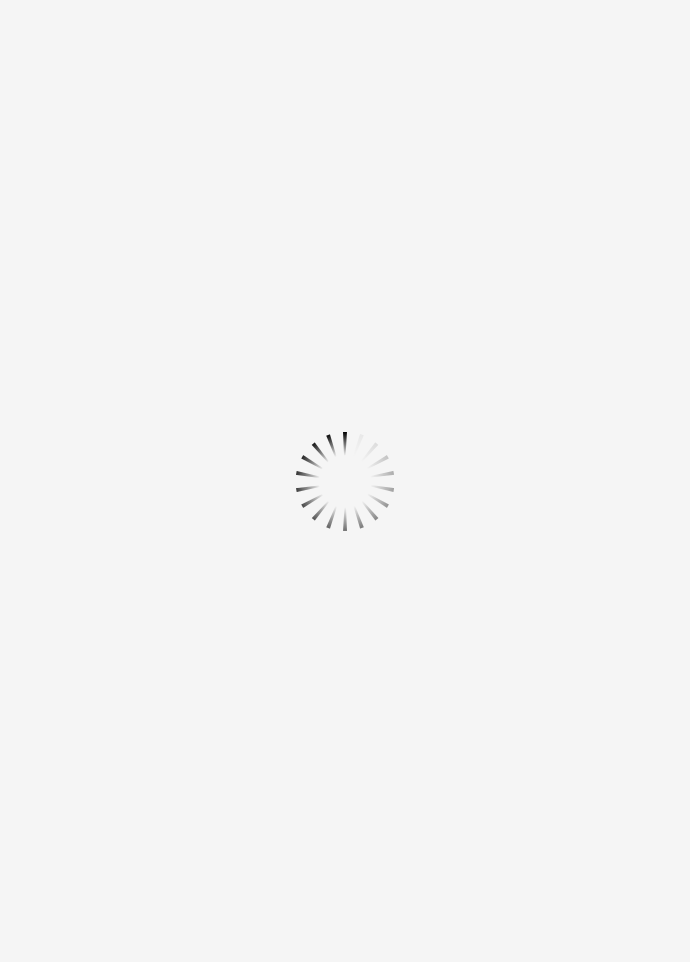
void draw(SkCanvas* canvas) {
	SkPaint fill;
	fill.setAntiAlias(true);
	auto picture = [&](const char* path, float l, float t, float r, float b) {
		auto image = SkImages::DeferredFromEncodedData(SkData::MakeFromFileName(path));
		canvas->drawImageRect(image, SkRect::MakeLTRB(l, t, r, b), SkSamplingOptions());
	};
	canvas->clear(0xFFF5F5F5);
	picture("image0.png", 296, 432, 394, 531);
}
